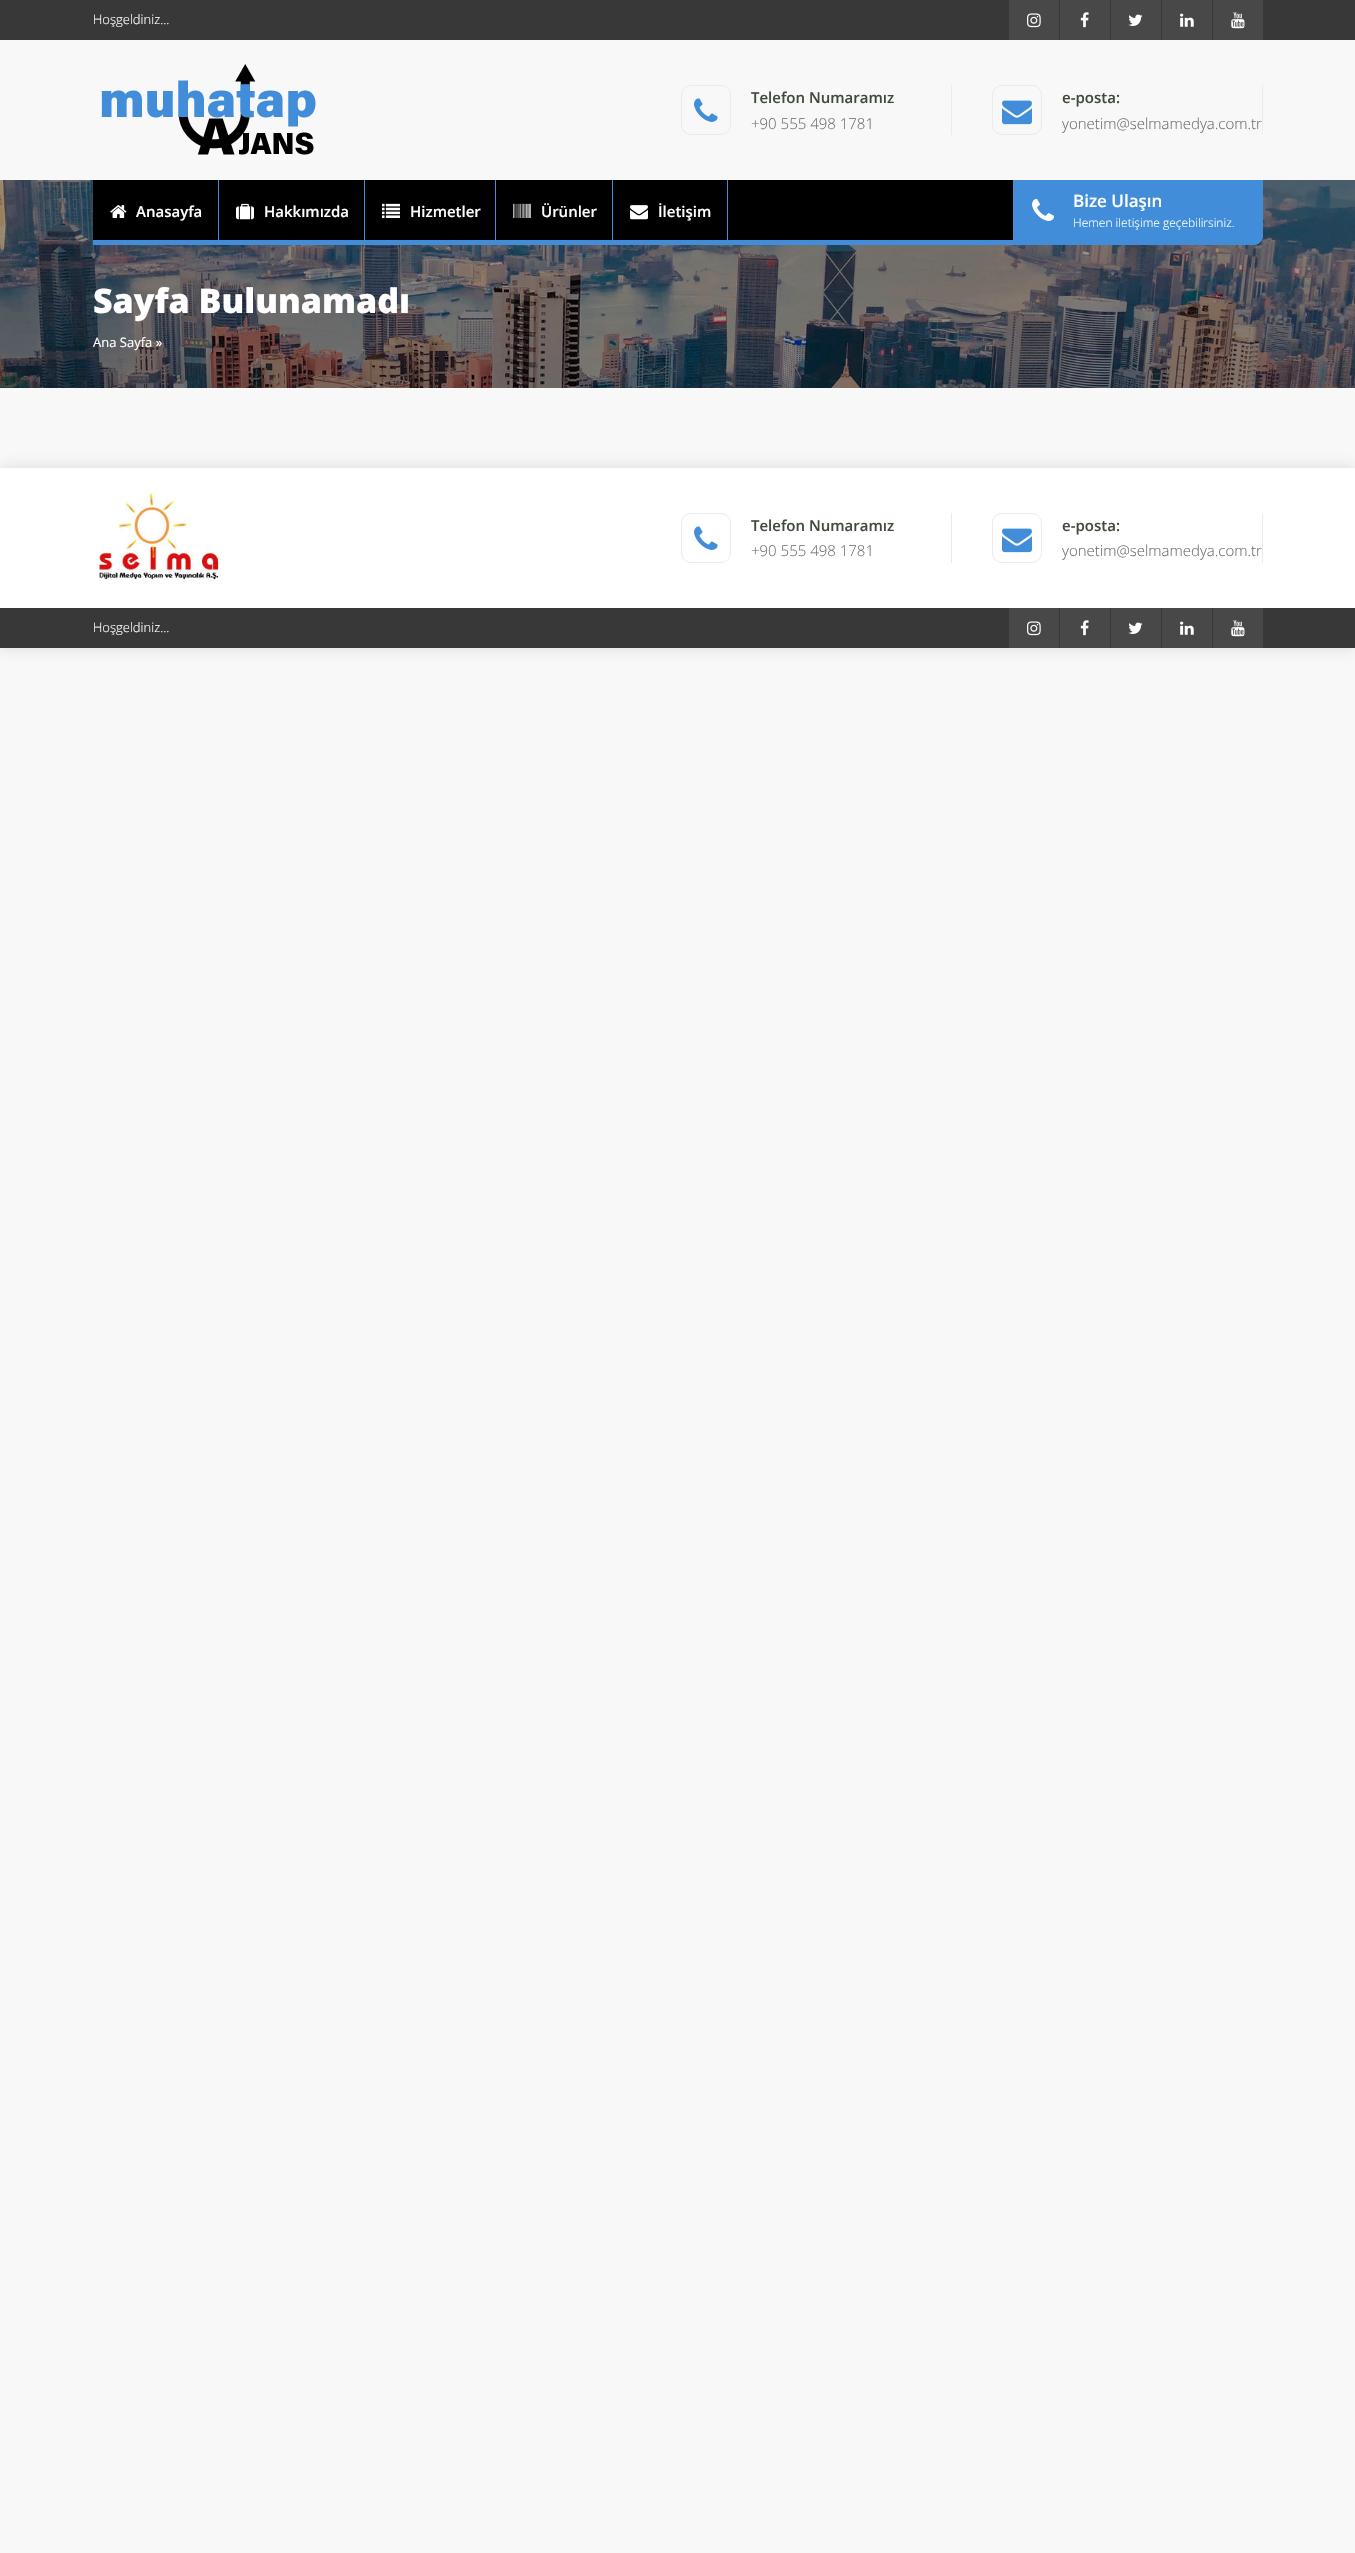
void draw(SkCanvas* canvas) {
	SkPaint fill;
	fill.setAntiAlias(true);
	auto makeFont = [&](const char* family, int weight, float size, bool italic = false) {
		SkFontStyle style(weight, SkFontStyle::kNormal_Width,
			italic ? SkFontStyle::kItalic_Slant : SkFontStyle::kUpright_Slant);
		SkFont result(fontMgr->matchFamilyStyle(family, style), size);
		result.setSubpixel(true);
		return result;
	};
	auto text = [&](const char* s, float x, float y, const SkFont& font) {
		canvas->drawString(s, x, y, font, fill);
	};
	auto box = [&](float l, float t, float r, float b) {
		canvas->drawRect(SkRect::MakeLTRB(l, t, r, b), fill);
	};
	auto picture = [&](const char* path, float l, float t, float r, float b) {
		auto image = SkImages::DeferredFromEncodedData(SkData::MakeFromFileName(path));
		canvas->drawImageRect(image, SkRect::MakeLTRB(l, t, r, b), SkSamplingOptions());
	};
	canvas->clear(0xFFF8F8F8);
	fill.setColor(0xFF383838);
	box(0, 0, 1355, 40);
	fill.setColor(0xFF484848);
	box(1009, 0, 1059, 40);
	picture("image0.png", 1027, 13, 1041, 28);
	box(1060, 0, 1110, 40);
	picture("image1.png", 1080, 12, 1089, 28);
	box(1111, 0, 1161, 40);
	picture("image2.png", 1128, 14, 1143, 26);
	box(1162, 0, 1212, 40);
	picture("image3.png", 1180, 13, 1194, 27);
	box(1213, 0, 1263, 40);
	picture("image4.png", 1231, 12, 1245, 29);
	picture("image5.png", 101, 64, 316, 155);
	fill.setColor(0xFFEBEBEB);
	box(951, 85, 952, 135);
	fill.setStyle(SkPaint::kStroke_Style);
	fill.setStrokeWidth(1);
	canvas->drawRoundRect(SkRect::MakeLTRB(681.5f, 85.5f, 730.5f, 134.5f), 9.5f, 9.5f, fill);
	picture("image6.png", 694, 98, 718, 122);
	fill.setStyle(SkPaint::kFill_Style);
	box(1262, 85, 1263, 135);
	fill.setStyle(SkPaint::kStroke_Style);
	canvas->drawRoundRect(SkRect::MakeLTRB(992.5f, 85.5f, 1041.5f, 134.5f), 9.5f, 9.5f, fill);
	picture("image7.png", 1002, 100, 1032, 125);
	fill.setStyle(SkPaint::kFill_Style);
	fill.setColor(0xFF000000);
	box(0, 180, 1355, 388);
	picture("image14.png", 0, 180, 1355, 388);
	box(93, 180, 1013, 240);
	fill.setColor(0xFF418DD9);
	box(93, 240, 1013, 245);
	box(218, 180, 219, 240);
	picture("image8.png", 110, 205, 127, 218);
	box(364, 180, 365, 240);
	picture("image9.png", 236, 203, 254, 220);
	box(495, 180, 496, 240);
	picture("image10.png", 382, 203, 400, 218);
	box(612, 180, 613, 240);
	picture("image11.png", 513, 203, 531, 218);
	box(727, 180, 728, 240);
	picture("image12.png", 630, 205, 648, 220);
	canvas->drawPath(SkPathBuilder().moveTo(1013, 180).lineTo(1263, 180).lineTo(1263, 235).cubicTo(1263, 240.5f, 1258.5f, 245, 1253, 245).lineTo(1013, 245).close().detach(), fill);
	canvas->drawPath(SkPathBuilder(SkPathFillType::kEvenOdd).moveTo(1013, 180).lineTo(1263, 180).lineTo(1263, 235).cubicTo(1263, 241, 1259, 245, 1253, 245).lineTo(1013, 245).close().moveTo(1013, 180).lineTo(1258, 180).lineTo(1258, 235).cubicTo(1258, 238, 1256, 240, 1253, 240).lineTo(1013, 240).close().detach(), fill);
	picture("image13.png", 1032, 199, 1054, 221);
	fill.setColor(0x80BABABA);
	fill.setMaskFilter(SkMaskFilter::MakeBlur(kNormal_SkBlurStyle, 7.5f));
	canvas->drawRect(SkRect::MakeLTRB(0, 468, 1355, 648), fill);
	fill.setMaskFilter(nullptr);
	fill.setColor(0xFFFFFFFF);
	box(0, 468, 1355, 608);
	picture("image15.png", 99, 488, 221, 585);
	fill.setColor(0xFFEBEBEB);
	box(951, 513, 952, 563);
	fill.setStyle(SkPaint::kStroke_Style);
	canvas->drawRoundRect(SkRect::MakeLTRB(681.5f, 513.5f, 730.5f, 562.5f), 9.5f, 9.5f, fill);
	picture("image16.png", 694, 526, 718, 550);
	fill.setStyle(SkPaint::kFill_Style);
	box(1262, 513, 1263, 563);
	fill.setStyle(SkPaint::kStroke_Style);
	canvas->drawRoundRect(SkRect::MakeLTRB(992.5f, 513.5f, 1041.5f, 562.5f), 9.5f, 9.5f, fill);
	picture("image17.png", 1002, 528, 1032, 553);
	fill.setStyle(SkPaint::kFill_Style);
	fill.setColor(0xFF383838);
	box(0, 608, 1355, 648);
	fill.setColor(0xFF484848);
	box(1009, 608, 1059, 648);
	picture("image0.png", 1027, 621, 1041, 636);
	box(1060, 608, 1110, 648);
	picture("image1.png", 1080, 620, 1089, 636);
	box(1111, 608, 1161, 648);
	picture("image2.png", 1128, 622, 1143, 634);
	box(1162, 608, 1212, 648);
	picture("image3.png", 1180, 621, 1194, 635);
	box(1213, 608, 1263, 648);
	picture("image4.png", 1231, 620, 1245, 637);
	auto font1 = makeFont("Open Sans", 300, 13);
	fill.setColor(0xFFFFFFFF);
	text("Hoşgeldiniz...", 93, 24, font1);
	auto font2 = makeFont("Open Sans", 600, 15);
	fill.setColor(0xFF404A3D);
	text("Telefon Numaramız", 751, 103, font2);
	auto font3 = makeFont("Open Sans", 300, 15);
	fill.setColor(0xFF6F6F6F);
	text("+90 555 498 1781", 751, 129, font3);
	fill.setColor(0xFF404A3D);
	text("e-posta:", 1062, 103, font2);
	fill.setColor(0xFF6F6F6F);
	text("yonetim@selmamedya.com.tr", 1062, 129, font3);
	fill.setColor(0xFFFFFFFF);
	text("Anasayfa", 136, 217, font2);
	text("Hakkımızda", 264, 217, font2);
	text("Hizmetler", 410, 217, font2);
	text("Ürünler", 541, 217, font2);
	text("İletişim", 658, 217, font2);
	auto font4 = makeFont("Open Sans", 600, 17);
	text("Bize Ulaşın", 1073, 207, font4);
	auto font5 = makeFont("Open Sans", 300, 12);
	text("Hemen iletişime geçebilirsiniz.", 1073, 227, font5);
	auto font6 = makeFont("Open Sans", 800, 34);
	text("Sayfa Bulunamadı", 93, 313, font6);
	auto font7 = makeFont("Open Sans", 400, 13);
	text("Ana Sayfa »", 93, 347, font7);
	fill.setColor(0xFF404A3D);
	text("Telefon Numaramız", 751, 531, font2);
	fill.setColor(0xFF6F6F6F);
	text("+90 555 498 1781", 751, 556, font3);
	fill.setColor(0xFF404A3D);
	text("e-posta:", 1062, 531, font2);
	fill.setColor(0xFF6F6F6F);
	text("yonetim@selmamedya.com.tr", 1062, 556, font3);
	fill.setColor(0xFFFFFFFF);
	text("Hoşgeldiniz...", 93, 632, font1);
}
